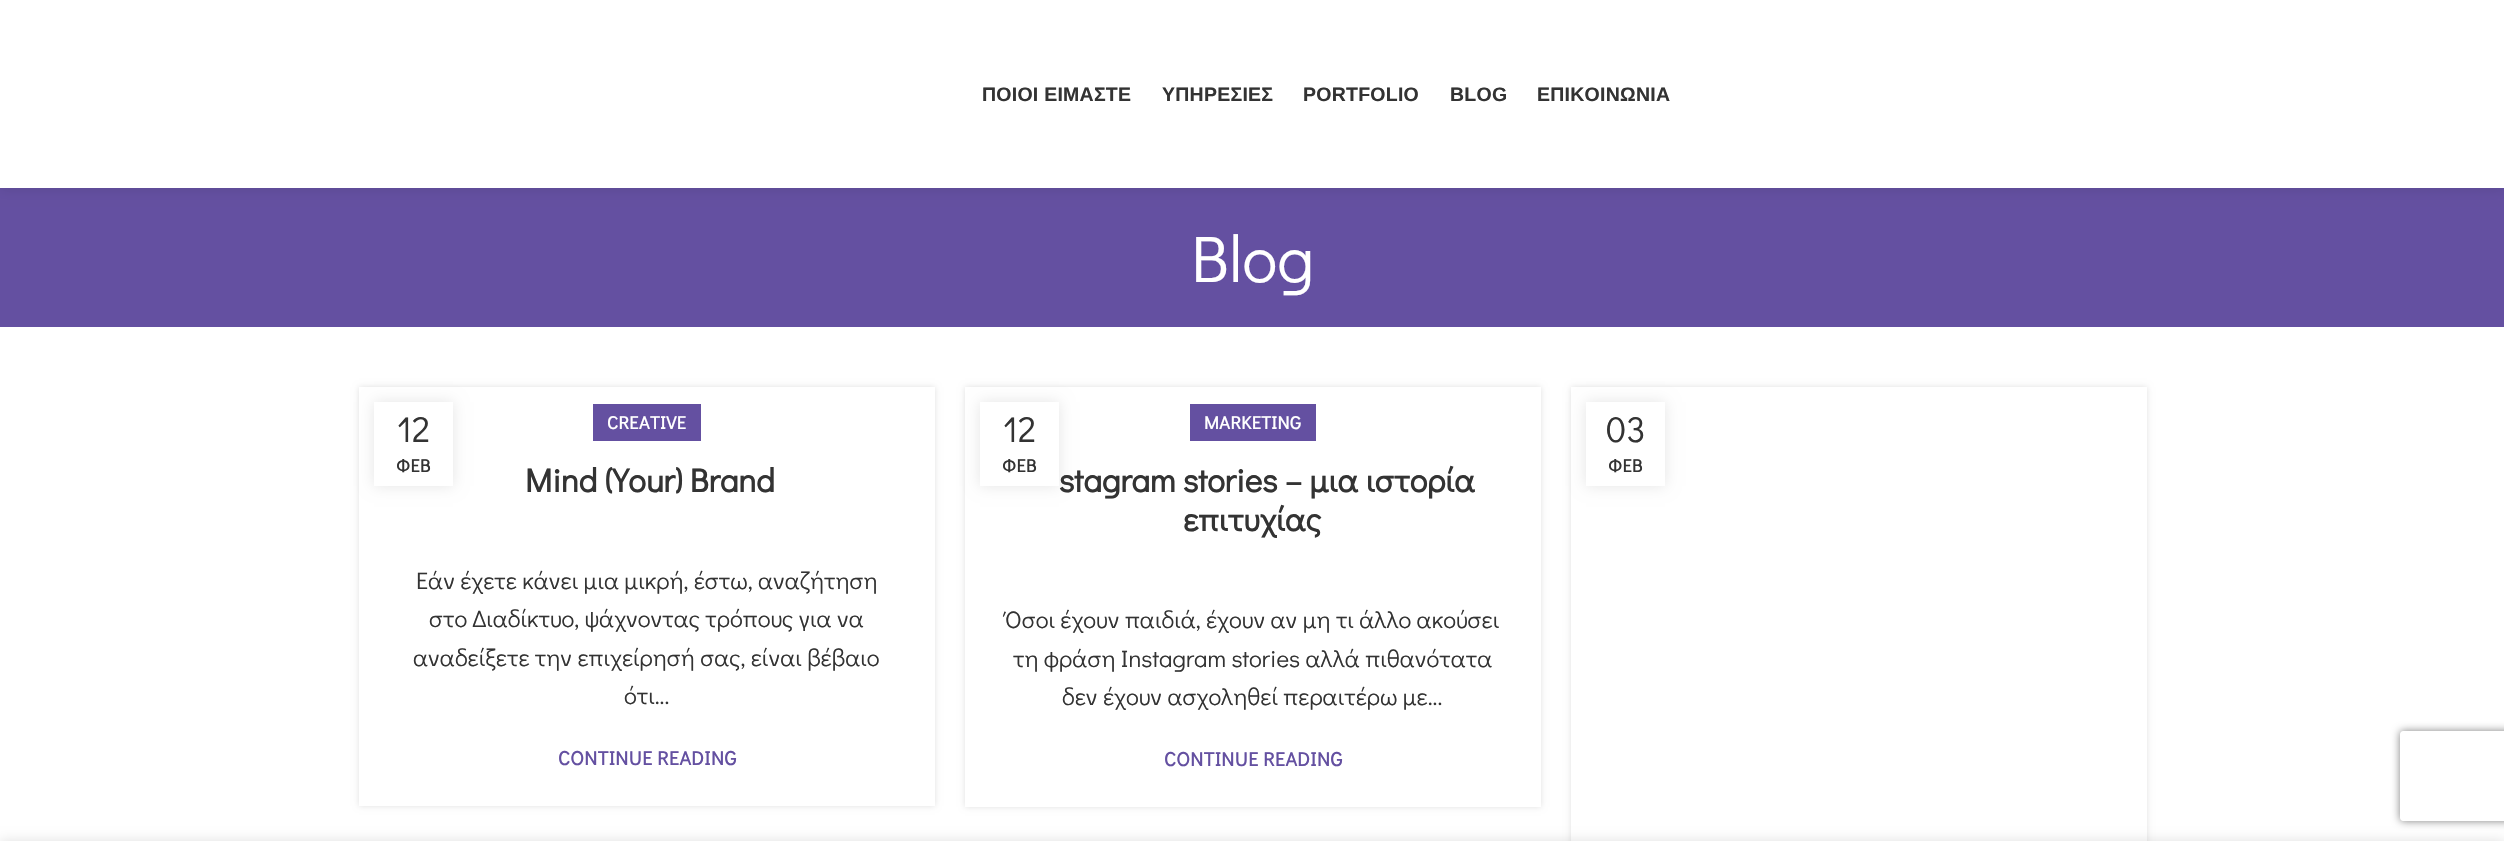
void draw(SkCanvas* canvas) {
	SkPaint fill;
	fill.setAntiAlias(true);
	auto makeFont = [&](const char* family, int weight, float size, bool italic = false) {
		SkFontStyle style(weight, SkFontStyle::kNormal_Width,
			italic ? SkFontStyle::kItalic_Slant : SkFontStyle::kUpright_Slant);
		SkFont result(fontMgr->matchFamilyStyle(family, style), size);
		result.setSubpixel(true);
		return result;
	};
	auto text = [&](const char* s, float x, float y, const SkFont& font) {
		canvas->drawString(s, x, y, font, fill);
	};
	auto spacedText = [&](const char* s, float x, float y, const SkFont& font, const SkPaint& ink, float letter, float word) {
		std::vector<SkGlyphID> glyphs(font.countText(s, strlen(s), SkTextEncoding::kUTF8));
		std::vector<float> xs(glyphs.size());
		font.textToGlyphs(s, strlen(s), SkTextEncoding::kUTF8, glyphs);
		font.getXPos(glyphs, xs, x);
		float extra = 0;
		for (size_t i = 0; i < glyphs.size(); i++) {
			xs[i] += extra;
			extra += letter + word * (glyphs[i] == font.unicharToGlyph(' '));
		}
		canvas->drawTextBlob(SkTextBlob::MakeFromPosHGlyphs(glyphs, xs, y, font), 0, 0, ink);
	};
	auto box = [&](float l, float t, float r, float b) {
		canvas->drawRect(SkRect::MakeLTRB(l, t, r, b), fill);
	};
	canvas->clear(0xFFFFFFFF);
	fill.setColor(0xFF6450A1);
	box(0, 188, 2504, 327);
	fill.setColor(0x1A000000);
	fill.setMaskFilter(SkMaskFilter::MakeBlur(kNormal_SkBlurStyle, 6));
	canvas->drawRect(SkRect::MakeLTRB(0, 2, 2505, 189), fill);
	fill.setMaskFilter(nullptr);
	fill.setColor(0xFFFFFFFF);
	box(0, 0, 2504, 188);
	canvas->save();
	canvas->clipPath(SkPathBuilder(SkPathFillType::kEvenOdd).moveTo(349, 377).lineTo(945, 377).lineTo(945, 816).lineTo(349, 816).close().moveTo(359, 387).lineTo(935, 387).lineTo(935, 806).lineTo(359, 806).close().detach(), true);
	fill.setColor(0x1F000000);
	fill.setMaskFilter(SkMaskFilter::MakeBlur(kNormal_SkBlurStyle, 3));
	canvas->drawRect(SkRect::MakeLTRB(359, 387, 935, 806), fill);
	fill.setMaskFilter(nullptr);
	canvas->restore();
	fill.setColor(0xFFFFFFFF);
	box(359, 423, 935, 806);
	canvas->save();
	canvas->clipPath(SkPathBuilder(SkPathFillType::kEvenOdd).moveTo(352, 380).lineTo(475, 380).lineTo(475, 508).lineTo(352, 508).close().moveTo(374, 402).lineTo(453, 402).lineTo(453, 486).lineTo(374, 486).close().detach(), true);
	fill.setColor(0x1A000000);
	fill.setMaskFilter(SkMaskFilter::MakeBlur(kNormal_SkBlurStyle, 7));
	canvas->drawRect(SkRect::MakeLTRB(374, 402, 453, 486), fill);
	fill.setMaskFilter(nullptr);
	canvas->restore();
	fill.setColor(0xFF6450A1);
	box(593, 404, 701, 441);
	canvas->save();
	canvas->clipPath(SkPathBuilder(SkPathFillType::kEvenOdd).moveTo(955, 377).lineTo(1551, 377).lineTo(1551, 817).lineTo(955, 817).close().moveTo(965, 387).lineTo(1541, 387).lineTo(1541, 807).lineTo(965, 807).close().detach(), true);
	fill.setColor(0x1F000000);
	fill.setMaskFilter(SkMaskFilter::MakeBlur(kNormal_SkBlurStyle, 3));
	canvas->drawRect(SkRect::MakeLTRB(965, 387, 1541, 807), fill);
	fill.setMaskFilter(nullptr);
	canvas->restore();
	fill.setColor(0x1A000000);
	fill.setMaskFilter(SkMaskFilter::MakeBlur(kNormal_SkBlurStyle, 7));
	canvas->drawRect(SkRect::MakeLTRB(980, 402, 1059, 486), fill);
	fill.setMaskFilter(nullptr);
	fill.setColor(0xFFFFFFFF);
	box(980, 402, 1059, 486);
	box(1540, 423, 1541, 807);
	fill.setColor(0xFF6450A1);
	box(1190, 404, 1316, 441);
	canvas->save();
	canvas->clipPath(SkPathBuilder(SkPathFillType::kEvenOdd).moveTo(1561, 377).lineTo(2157, 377).lineTo(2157, 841).lineTo(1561, 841).close().moveTo(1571, 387).lineTo(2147, 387).lineTo(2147, 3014).lineTo(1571, 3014).close().detach(), true);
	fill.setColor(0x1F000000);
	fill.setMaskFilter(SkMaskFilter::MakeBlur(kNormal_SkBlurStyle, 3));
	canvas->drawRect(SkRect::MakeLTRB(1571, 387, 2147, 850), fill);
	fill.setMaskFilter(nullptr);
	canvas->restore();
	canvas->save();
	canvas->clipPath(SkPathBuilder(SkPathFillType::kEvenOdd).moveTo(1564, 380).lineTo(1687, 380).lineTo(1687, 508).lineTo(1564, 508).close().moveTo(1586, 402).lineTo(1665, 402).lineTo(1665, 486).lineTo(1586, 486).close().detach(), true);
	fill.setColor(0x1A000000);
	fill.setMaskFilter(SkMaskFilter::MakeBlur(kNormal_SkBlurStyle, 7));
	canvas->drawRect(SkRect::MakeLTRB(1586, 402, 1665, 486), fill);
	fill.setMaskFilter(nullptr);
	canvas->restore();
	canvas->save();
	canvas->clipPath(SkPathBuilder(SkPathFillType::kEvenOdd).moveTo(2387, 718).lineTo(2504, 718).lineTo(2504, 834).lineTo(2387, 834).close().moveTo(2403, 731).lineTo(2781, 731).cubicTo(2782.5f, 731, 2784, 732.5f, 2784, 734).lineTo(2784, 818).cubicTo(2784, 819.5f, 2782.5f, 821, 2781, 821).lineTo(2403, 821).cubicTo(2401.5f, 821, 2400, 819.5f, 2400, 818).lineTo(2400, 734).cubicTo(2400, 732.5f, 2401.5f, 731, 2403, 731).close().detach(), true);
	fill.setColor(0xFF808080);
	fill.setMaskFilter(SkMaskFilter::MakeBlur(kNormal_SkBlurStyle, 4));
	canvas->drawRoundRect(SkRect::MakeLTRB(2400, 731, 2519, 821), 3, 3, fill);
	fill.setMaskFilter(nullptr);
	canvas->restore();
	fill.setColor(0x24000000);
	fill.setMaskFilter(SkMaskFilter::MakeBlur(kNormal_SkBlurStyle, 7));
	canvas->drawRect(SkRect::MakeLTRB(0, 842, 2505, 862), fill);
	fill.setMaskFilter(nullptr);
	auto font1 = makeFont("Arimo", 700, 19.5f);
	fill.setColor(0xFF333333);
	spacedText("ΠΟΙΟΙ ΕΙΜΑΣΤΕ", 982, 101, font1, fill, 0.25f, 0);
	spacedText("ΥΠΗΡΕΣΙΕΣ", 1162, 101, font1, fill, 0.25f, 0);
	spacedText("PORTFOLIO", 1303, 101, font1, fill, 0.25f, 0);
	spacedText("BLOG", 1450, 101, font1, fill, 0.25f, 0);
	spacedText("ΕΠΙΚΟΙΝΩΝΙΑ", 1537, 101, font1, fill, 0.25f, 0);
	auto font2 = makeFont("Didact Gothic", 400, 66);
	fill.setColor(0xFFFFFFFF);
	text("Blog", 1191, 282, font2);
	auto font3 = makeFont("Didact Gothic", 400, 36);
	fill.setColor(0xFF333333);
	text("12", 397, 442, font3);
	auto font4 = makeFont("Didact Gothic", 700, 18);
	spacedText("ΦΕΒ", 396, 472, font4, fill, 0.5f, 0);
	fill.setColor(0xFFFFFFFF);
	spacedText("CREATIVE", 607, 429, font4, fill, 0.5f, 0);
	auto font5 = makeFont("Didact Gothic", 700, 33);
	fill.setColor(0xFF333333);
	text("Mind (Your) Brand", 525, 492, font5);
	auto font6 = makeFont("Didact Gothic", 400, 24);
	text("Εάν έχετε κάνει μια μικρή, έστω, αναζήτηση", 416, 589, font6);
	text("στο Διαδίκτυο, ψάχνοντας τρόπους για να", 429, 627, font6);
	text("αναδείξετε την επιχείρησή σας, είναι βέβαιο", 413, 666, font6);
	text("ότι...", 624, 704, font6);
	auto font7 = makeFont("Didact Gothic", 700, 19.5f);
	fill.setColor(0xFF6450A1);
	spacedText("CONTINUE READING", 558, 765, font7, fill, 0.5f, 0);
	fill.setColor(0xFF333333);
	text("12", 1003, 442, font3);
	spacedText("ΦΕΒ", 1002, 472, font4, fill, 0.5f, 0);
	fill.setColor(0xFFFFFFFF);
	spacedText("MARKETING", 1204, 429, font4, fill, 0.5f, 0);
	fill.setColor(0xFF333333);
	text("stagram stories – μια ιστορία", 1059, 492, font5);
	text("επιτυχίας", 1183, 531, font5);
	text("Όσοι έχουν παιδιά, έχουν αν μη τι άλλο ακούσει", 1005, 628, font6);
	text("τη φράση Instagram stories αλλά πιθανότατα", 1013, 667, font6);
	text("δεν έχουν ασχοληθεί περαιτέρω με...", 1062, 705, font6);
	fill.setColor(0xFF6450A1);
	spacedText("CONTINUE READING", 1164, 766, font7, fill, 0.5f, 0);
	fill.setColor(0xFF333333);
	text("03", 1606, 442, font3);
	spacedText("ΦΕΒ", 1608, 472, font4, fill, 0.5f, 0);
}
